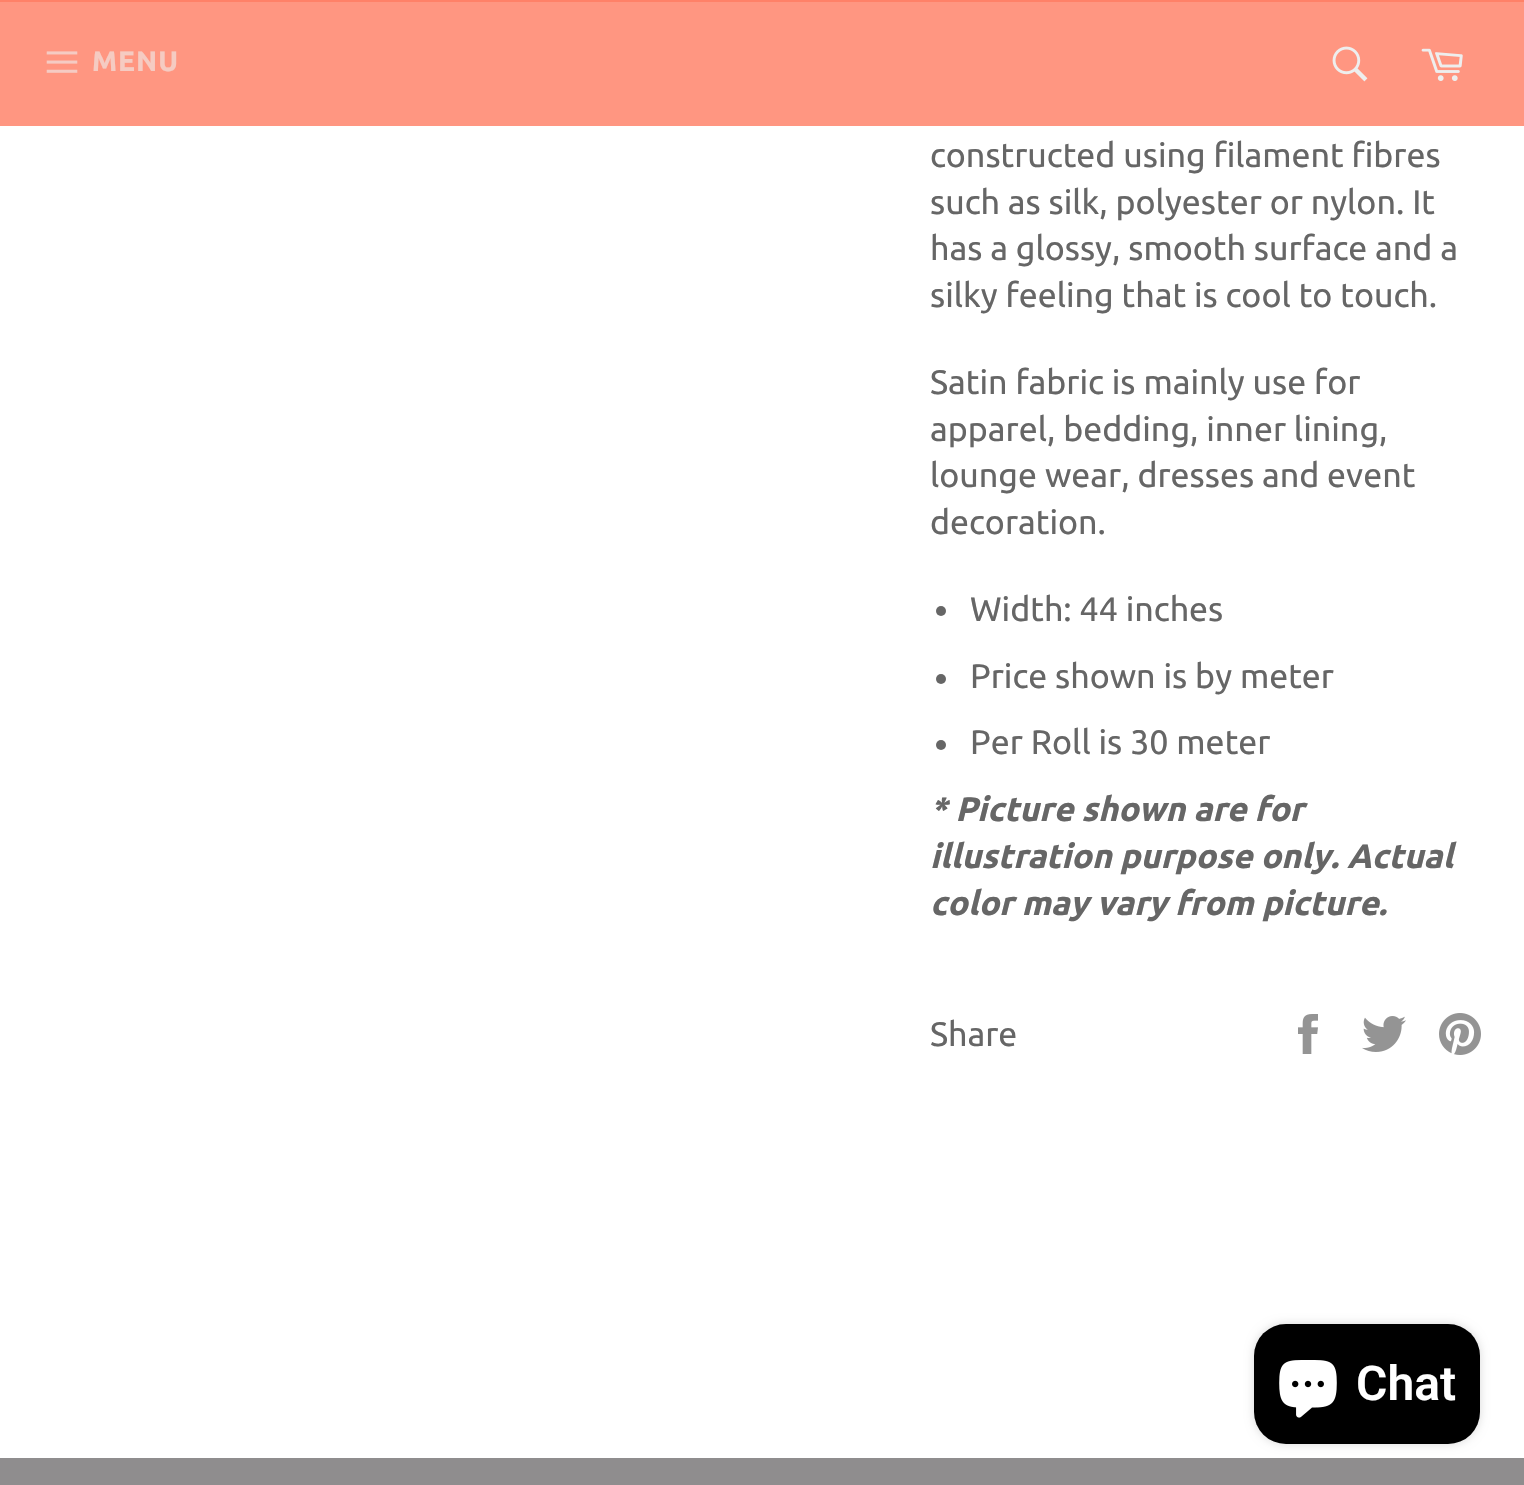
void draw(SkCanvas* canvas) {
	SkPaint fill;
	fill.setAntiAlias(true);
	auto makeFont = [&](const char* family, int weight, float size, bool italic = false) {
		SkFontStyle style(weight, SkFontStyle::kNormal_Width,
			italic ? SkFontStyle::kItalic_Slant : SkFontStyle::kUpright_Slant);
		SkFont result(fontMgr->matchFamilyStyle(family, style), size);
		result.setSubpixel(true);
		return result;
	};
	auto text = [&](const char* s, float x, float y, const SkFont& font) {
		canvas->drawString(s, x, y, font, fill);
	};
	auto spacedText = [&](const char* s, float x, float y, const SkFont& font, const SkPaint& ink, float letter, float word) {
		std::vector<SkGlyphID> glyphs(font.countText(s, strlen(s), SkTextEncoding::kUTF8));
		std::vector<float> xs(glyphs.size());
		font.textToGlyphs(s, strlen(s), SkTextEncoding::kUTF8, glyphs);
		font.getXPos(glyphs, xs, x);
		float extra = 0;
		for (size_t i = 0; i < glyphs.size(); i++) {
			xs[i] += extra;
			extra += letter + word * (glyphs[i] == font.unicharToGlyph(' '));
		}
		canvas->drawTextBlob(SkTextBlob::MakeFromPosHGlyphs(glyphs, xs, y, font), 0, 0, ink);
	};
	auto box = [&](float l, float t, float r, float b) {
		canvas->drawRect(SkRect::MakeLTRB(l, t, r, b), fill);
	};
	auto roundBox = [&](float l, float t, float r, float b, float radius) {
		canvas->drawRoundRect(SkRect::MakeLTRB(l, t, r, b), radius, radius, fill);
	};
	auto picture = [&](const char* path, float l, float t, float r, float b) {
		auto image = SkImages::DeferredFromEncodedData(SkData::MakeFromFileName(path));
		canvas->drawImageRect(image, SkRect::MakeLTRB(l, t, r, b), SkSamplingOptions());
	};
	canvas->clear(0xFFFFFFFF);
	fill.setColor(0xFFFF9681);
	box(0, 2, 1524, 126);
	fill.setColor(0xFFFF8168);
	box(0, 0, 1524, 2);
	picture("image0.png", 46, 51, 78, 73);
	picture("image1.png", 1332, 46, 1368, 82);
	picture("image2.png", 1421, 48, 1463, 81);
	fill.setColor(0xFF666666);
	canvas->drawCircle(941, 611, 5, fill);
	canvas->drawCircle(941, 679, 5, fill);
	canvas->drawCircle(941, 745, 5, fill);
	picture("image3.png", 1298, 1014, 1318, 1054);
	picture("image4.png", 1362, 1016, 1406, 1052);
	picture("image5.png", 1439, 1013, 1481, 1055);
	fill.setColor(0xFF8F8D8E);
	box(0, 1458, 1524, 1485);
	fill.setColor(0x26000000);
	fill.setMaskFilter(SkMaskFilter::MakeBlur(kNormal_SkBlurStyle, 5));
	canvas->drawRoundRect(SkRect::MakeLTRB(1254, 1324, 1480, 1444), 32, 32, fill);
	fill.setMaskFilter(nullptr);
	fill.setColor(0xFF000000);
	roundBox(1254, 1324, 1480, 1444, 32);
	picture("image6.png", 1279, 1360, 1337, 1418);
	auto font1 = makeFont("Ubuntu", 700, 28);
	fill.setColor(0xFFF5CBC2);
	spacedText("MENU", 92, 71, font1, fill, 1, 0);
	auto font2 = makeFont("Ubuntu", 400, 34);
	fill.setColor(0xFF666666);
	text("constructed using filament fibres", 930, 167, font2);
	text("such as silk, polyester or nylon. It", 930, 214, font2);
	text("has a glossy, smooth surface and a", 930, 260, font2);
	text("silky feeling that is cool to touch.", 930, 307, font2);
	text("Satin fabric is mainly use for", 930, 394, font2);
	text("apparel, bedding, inner lining,", 930, 441, font2);
	text("lounge wear, dresses and event", 930, 487, font2);
	text("decoration.", 930, 534, font2);
	text("Width: 44 inches", 970, 621, font2);
	text("Price shown is by meter", 970, 688, font2);
	text("Per Roll is 30 meter", 970, 754, font2);
	auto font3 = makeFont("Ubuntu", 700, 34, true);
	text("* Picture shown are for", 930, 821, font3);
	text("illustration purpose only. Actual", 930, 868, font3);
	text("color may vary from picture.", 930, 915, font3);
	text("Share", 930, 1046, font2);
	auto font4 = makeFont("Roboto", 600, 48);
	fill.setColor(0xFFFFFFFF);
	text("Chat", 1356, 1400, font4);
}
